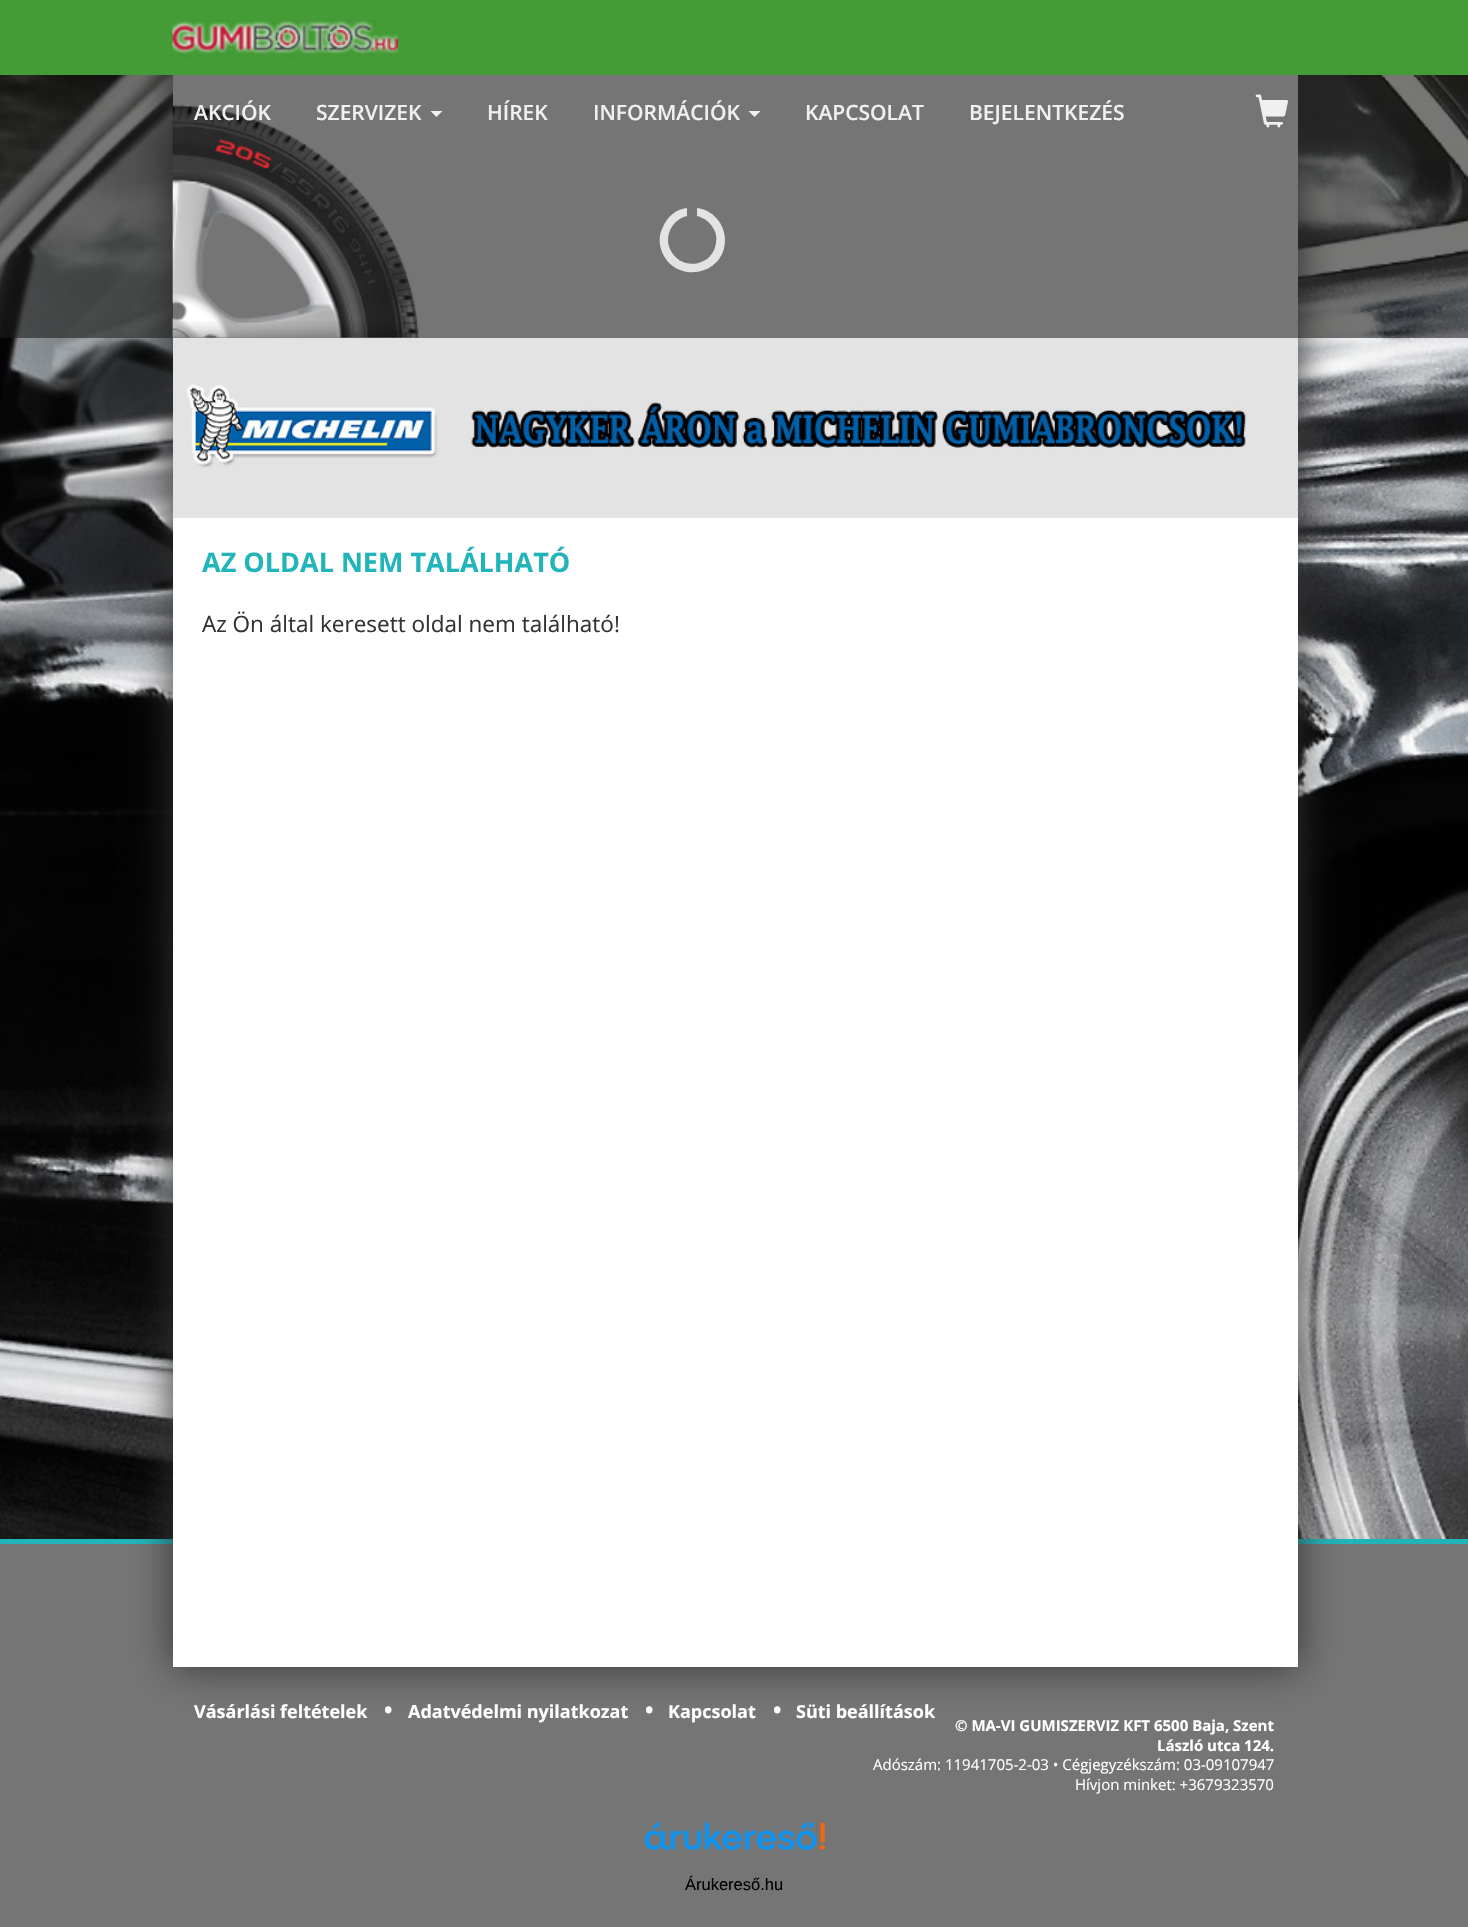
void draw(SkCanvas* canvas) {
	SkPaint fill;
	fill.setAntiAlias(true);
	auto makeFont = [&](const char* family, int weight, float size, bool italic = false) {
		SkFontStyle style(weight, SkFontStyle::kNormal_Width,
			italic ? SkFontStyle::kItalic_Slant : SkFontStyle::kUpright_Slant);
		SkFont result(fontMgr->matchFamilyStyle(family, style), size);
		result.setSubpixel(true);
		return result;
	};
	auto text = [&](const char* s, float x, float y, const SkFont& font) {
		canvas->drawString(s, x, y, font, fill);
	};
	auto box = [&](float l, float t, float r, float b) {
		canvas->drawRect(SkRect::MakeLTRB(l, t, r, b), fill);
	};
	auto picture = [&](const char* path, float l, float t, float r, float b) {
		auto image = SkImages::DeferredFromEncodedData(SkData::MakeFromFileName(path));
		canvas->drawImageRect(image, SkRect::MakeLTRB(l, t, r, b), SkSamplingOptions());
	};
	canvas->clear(0xFFFFFFFF);
	picture("image0.png", 0, 75, 1468, 1539);
	fill.setColor(0xFF757575);
	box(0, 1544, 1468, 1927);
	fill.setColor(0xFF21B5BA);
	box(0, 1539, 1468, 1544);
	fill.setColor(0xFF333333);
	fill.setMaskFilter(SkMaskFilter::MakeBlur(kNormal_SkBlurStyle, 19));
	canvas->drawRect(SkRect::MakeLTRB(173, 0, 1298, 1667), fill);
	fill.setMaskFilter(nullptr);
	fill.setColor(0x991C1C1B);
	box(0, 75, 1468, 338);
	fill.setColor(0xFF757575);
	box(173, 75, 1298, 338);
	picture("image1.png", 172, 104, 419, 338);
	fill.setColor(0xFFE3E3E3);
	canvas->drawPath(SkPathBuilder().moveTo(725, 240).cubicTo(725, 277, 672, 285, 661, 249).cubicTo(659, 242, 659, 234, 663, 227).cubicTo(667, 217, 676, 209, 687, 208).lineTo(687, 216).cubicTo(673, 219, 664, 235, 670, 249).cubicTo(680, 272, 714, 267, 716, 242).cubicTo(717, 237, 716, 232, 713, 228).cubicTo(710, 222, 704, 218, 697, 216).lineTo(697, 208).cubicTo(713, 210, 725, 224, 725, 240).close().detach(), fill);
	picture("image2.png", 172, 321, 413, 338);
	fill.setColor(0xFF449C36);
	box(0, 0, 1468, 75);
	picture("image3.png", 172, 20, 398, 60);
	fill.setColor(0xFFF0F0F0);
	canvas->drawPath(SkPathBuilder().moveTo(430.5f, 111).lineTo(442.5f, 111).lineTo(436.5f, 117).close().detach(), fill);
	canvas->drawPath(SkPathBuilder().moveTo(748.5f, 111).lineTo(760.5f, 111).lineTo(754.5f, 117).close().detach(), fill);
	picture("image4.png", 1255, 94, 1288, 128);
	fill.setColor(0xFFFFFFFF);
	box(173, 518, 1298, 1667);
	fill.setColor(0xFFE3E3E3);
	box(173, 338, 1298, 518);
	picture("image5.png", 186, 384, 1250, 468);
	picture("image6.png", 645, 1822, 825, 1850);
	auto font1 = makeFont("Open Sans", 600, 21);
	fill.setColor(0xFFF0F0F0);
	text("AKCIÓK", 194, 120, font1);
	text("SZERVIZEK", 316, 120, font1);
	text("HÍREK", 487, 120, font1);
	text("INFORMÁCIÓK", 593, 120, font1);
	text("KAPCSOLAT", 805, 120, font1);
	text("BEJELENTKEZÉS", 969, 120, font1);
	auto font2 = makeFont("Open Sans", 700, 27);
	fill.setColor(0xFF21B5BA);
	text("AZ OLDAL NEM TALÁLHATÓ", 202, 572, font2);
	auto font3 = makeFont("Open Sans", 400, 22.5f);
	fill.setColor(0xFF333333);
	text("Az Ön által keresett oldal nem található!", 202, 632, font3);
	auto font4 = makeFont("Open Sans", 700, 18);
	fill.setColor(0xFFFFFFFF);
	text("Vásárlási feltételek", 194, 1718, font4);
	auto font5 = makeFont("Open Sans", 700, 22.5f);
	text("•", 384, 1718, font5);
	text("Adatvédelmi nyilatkozat", 408, 1718, font4);
	text("•", 645, 1718, font5);
	text("Kapcsolat", 668, 1718, font4);
	text("•", 773, 1718, font5);
	text("Süti beállítások", 796, 1718, font4);
	auto font6 = makeFont("Open Sans", 700, 15);
	text("© MA-VI GUMISZERVIZ KFT 6500 Baja, Szent", 955, 1731, font6);
	text("László utca 124.", 1157, 1751, font6);
	auto font7 = makeFont("Open Sans", 400, 15);
	text("Adószám: 11941705-2-03 • Cégjegyzékszám: 03-09107947", 873, 1770, font7);
	text("Hívjon minket: +3679323570", 1075, 1790, font7);
	auto font8 = makeFont("Liberation Sans", 400, 16.5f);
	fill.setColor(0xFF000000);
	text("Árukereső.hu", 685, 1890, font8);
}
